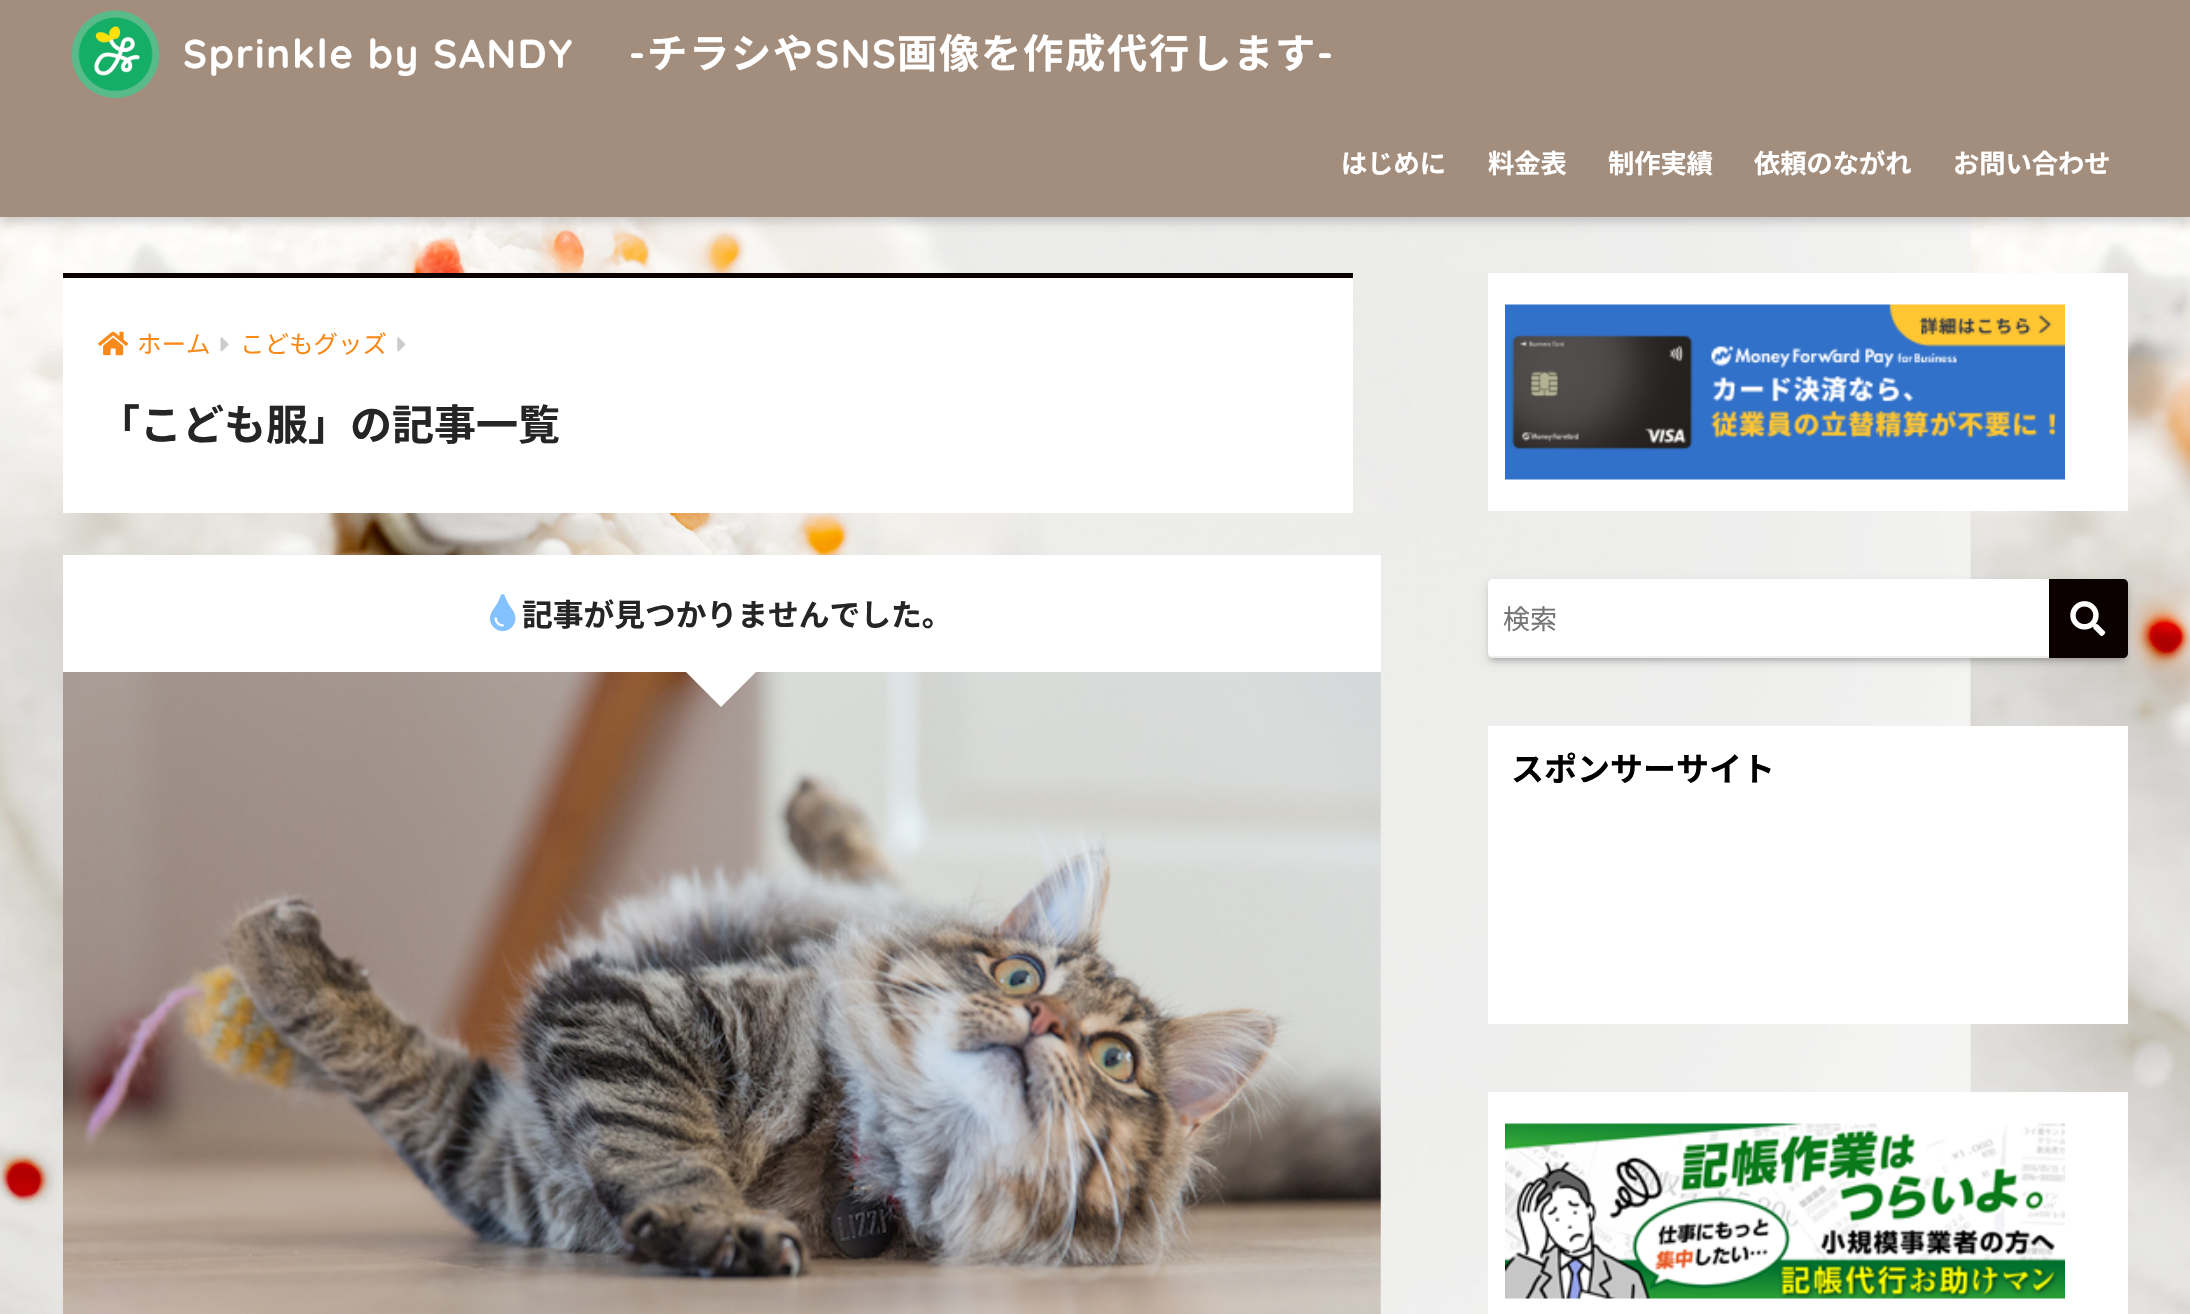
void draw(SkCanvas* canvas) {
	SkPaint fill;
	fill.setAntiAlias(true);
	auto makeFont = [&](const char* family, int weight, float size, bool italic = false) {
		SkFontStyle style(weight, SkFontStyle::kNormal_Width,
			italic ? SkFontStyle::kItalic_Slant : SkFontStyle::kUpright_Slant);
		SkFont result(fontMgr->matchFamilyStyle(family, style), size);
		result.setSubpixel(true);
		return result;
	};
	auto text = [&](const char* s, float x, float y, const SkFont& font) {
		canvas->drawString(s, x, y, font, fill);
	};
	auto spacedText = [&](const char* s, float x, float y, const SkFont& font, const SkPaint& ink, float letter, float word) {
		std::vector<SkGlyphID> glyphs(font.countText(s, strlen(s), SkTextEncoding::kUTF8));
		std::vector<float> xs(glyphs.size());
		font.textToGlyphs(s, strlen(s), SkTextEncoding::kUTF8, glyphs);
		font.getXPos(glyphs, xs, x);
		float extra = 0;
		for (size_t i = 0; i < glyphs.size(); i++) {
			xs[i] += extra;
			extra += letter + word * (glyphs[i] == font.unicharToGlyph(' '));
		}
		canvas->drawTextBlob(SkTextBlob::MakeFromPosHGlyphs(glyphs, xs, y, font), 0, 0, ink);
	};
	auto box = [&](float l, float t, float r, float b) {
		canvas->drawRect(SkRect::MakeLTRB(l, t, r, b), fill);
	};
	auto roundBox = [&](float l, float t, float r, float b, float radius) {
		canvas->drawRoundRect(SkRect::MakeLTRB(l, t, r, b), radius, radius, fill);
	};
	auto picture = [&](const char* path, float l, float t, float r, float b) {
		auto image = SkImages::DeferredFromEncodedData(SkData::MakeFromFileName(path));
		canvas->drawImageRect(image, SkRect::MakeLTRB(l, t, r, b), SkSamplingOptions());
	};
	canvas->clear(0xFFFFFFFF);
	picture("image0.png", 0, 217, 2190, 1314);
	fill.setColor(0x2E000000);
	fill.setMaskFilter(SkMaskFilter::MakeBlur(kNormal_SkBlurStyle, 5));
	canvas->drawRect(SkRect::MakeLTRB(0, 5, 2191, 222), fill);
	fill.setMaskFilter(nullptr);
	fill.setColor(0xFFA38D7D);
	box(0, 0, 2190, 217);
	picture("image1.png", 71, 10, 160, 98);
	fill.setColor(0xFFFFFFFF);
	box(63, 278, 1353, 513);
	fill.setColor(0xFF0A0000);
	box(63, 273, 1353, 278);
	picture("image2.png", 98, 331, 129, 356);
	picture("image3.png", 220, 337, 229, 352);
	picture("image4.png", 397, 337, 406, 352);
	fill.setColor(0xFFFFFFFF);
	box(63, 555, 1381, 672);
	picture("image5.png", 490, 594, 516, 632);
	picture("image6.png", 63, 672, 1381, 1314);
	canvas->drawPath(SkPathBuilder().moveTo(686, 672).lineTo(756, 672).lineTo(721, 707).close().detach(), fill);
	box(1488, 273, 2128, 511);
	picture("image7.png", 1505, 304, 2065, 480);
	fill.setColor(0x26000000);
	fill.setMaskFilter(SkMaskFilter::MakeBlur(kNormal_SkBlurStyle, 2.5f));
	canvas->drawRoundRect(SkRect::MakeLTRB(1491, 588, 2125, 660), 2, 2, fill);
	fill.setMaskFilter(nullptr);
	fill.setMaskFilter(SkMaskFilter::MakeBlur(kNormal_SkBlurStyle, 4.5f));
	canvas->drawRoundRect(SkRect::MakeLTRB(1488, 583, 2128, 662), 5, 5, fill);
	fill.setMaskFilter(nullptr);
	fill.setColor(0xFFFFFFFF);
	roundBox(1488, 579, 2128, 658, 5);
	fill.setColor(0xFFEFEFEF);
	box(1491, 656, 2126, 658);
	fill.setColor(0xFF0A0000);
	canvas->drawPath(SkPathBuilder().moveTo(2049, 579).lineTo(2123, 579).cubicTo(2126, 579, 2128, 581, 2128, 584).lineTo(2128, 653).cubicTo(2128, 656, 2126, 658, 2123, 658).lineTo(2049, 658).close().detach(), fill);
	fill.setColor(0x1A000000);
	box(2124, 657, 2126, 658);
	picture("image8.png", 2070, 601, 2106, 637);
	fill.setColor(0xFFFFFFFF);
	box(1488, 726, 2128, 1024);
	box(1488, 1092, 2128, 1314);
	picture("image9.png", 1505, 1123, 2065, 1299);
	auto font1 = makeFont("Quicksand", 700, 40.25f);
	spacedText("Sprinkle by SANDY", 183, 68, font1, fill, 1.75f, 0);
	spacedText("-", 629, 68, font1, fill, 1.75f, 0);
	auto font2 = makeFont("Noto Sans JP", 700, 40.25f);
	spacedText("チラシや", 647, 68, font2, fill, 1.75f, 0);
	spacedText("SNS", 815, 68, font1, fill, 1.75f, 0);
	spacedText("画像を作成代行します", 897, 68, font2, fill, 1.75f, 0);
	spacedText("-", 1317, 68, font1, fill, 1.75f, 0);
	auto font3 = makeFont("Noto Sans JP", 700, 26.25f);
	text("はじめに", 1341, 173, font3);
	text("料金表", 1488, 173, font3);
	text("制作実績", 1608, 173, font3);
	text("依頼のながれ", 1754, 173, font3);
	text("お問い合わせ", 1953, 173, font3);
	auto font4 = makeFont("Noto Sans JP", 400, 24.5f);
	fill.setColor(0xFFF98918);
	text("ホーム", 137, 353, font4);
	text("こどもグッズ", 240, 353, font4);
	auto font5 = makeFont("Noto Sans JP", 700, 42);
	fill.setColor(0xFF252525);
	text("「こども服」の記事一覧", 98, 440, font5);
	auto font6 = makeFont("Noto Sans JP", 700, 30.75f);
	text("記事が見つかりませんでした。", 522, 626, font6);
	auto font7 = makeFont("Noto Sans JP", 400, 27);
	fill.setColor(0xFF757575);
	text("検索", 1503, 629, font7);
	auto font8 = makeFont("Noto Sans JP", 700, 33);
	fill.setColor(0xFF000000);
	text("スポンサーサイト", 1511, 781, font8);
}
